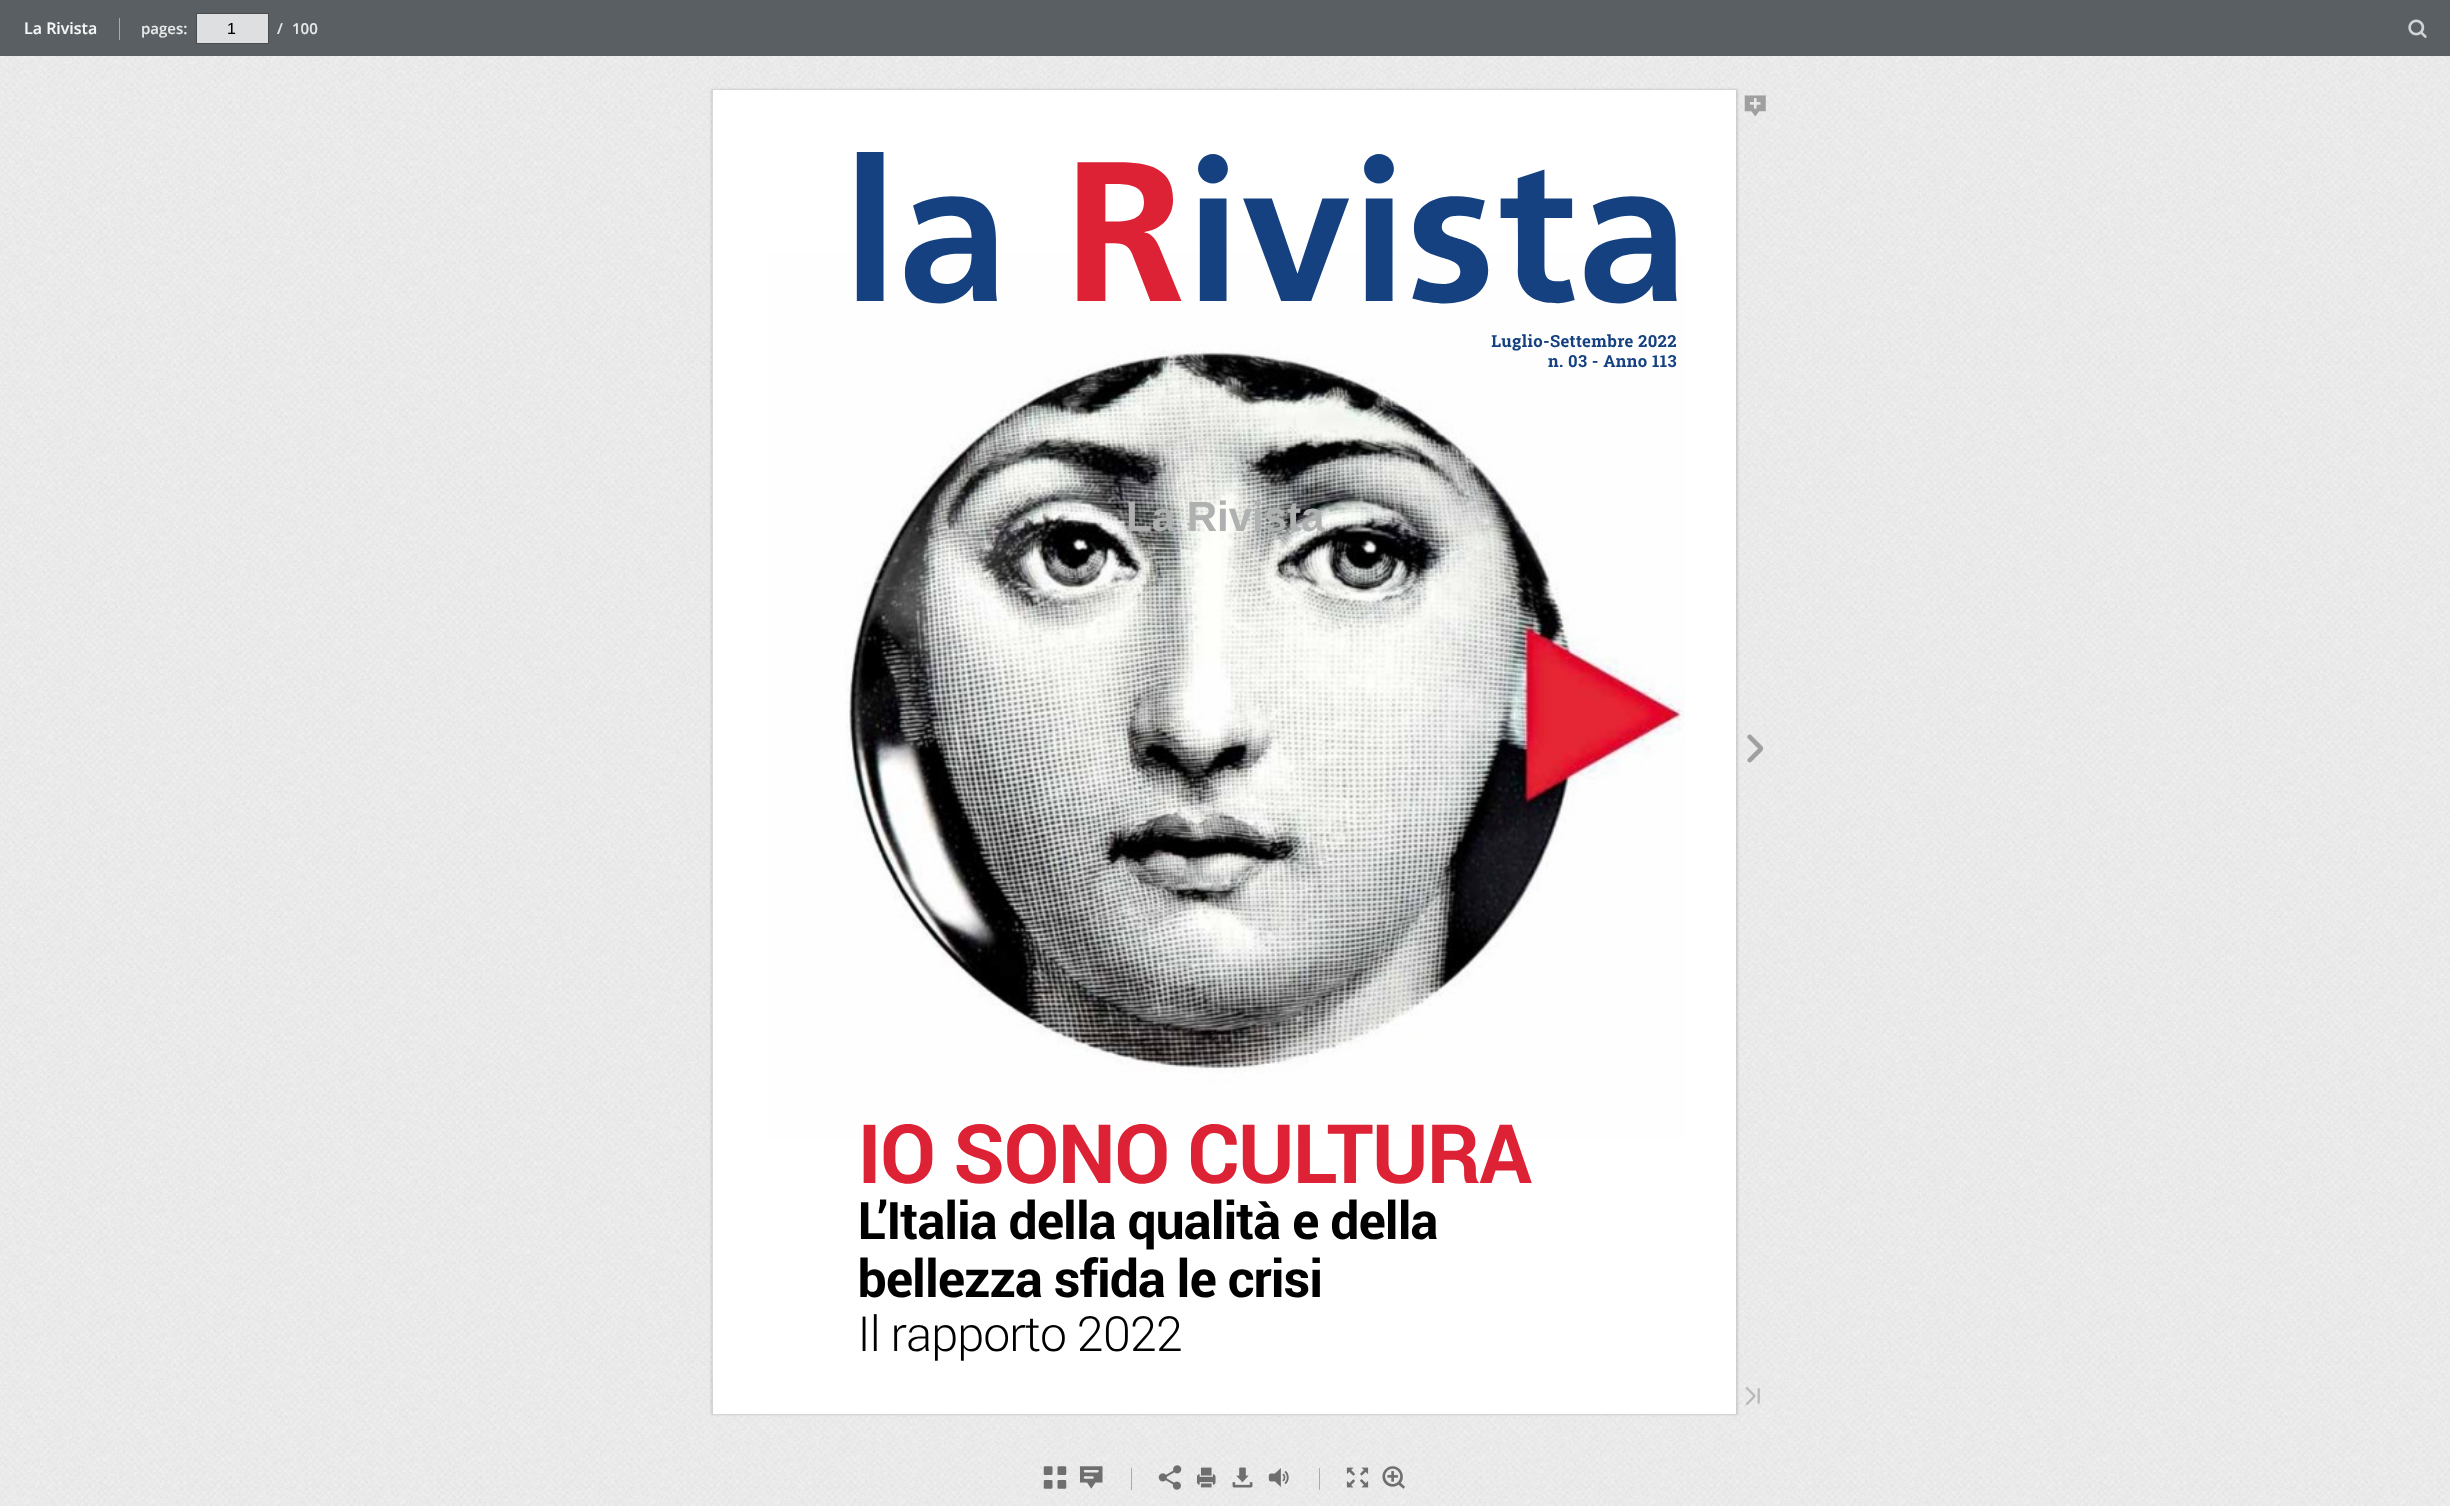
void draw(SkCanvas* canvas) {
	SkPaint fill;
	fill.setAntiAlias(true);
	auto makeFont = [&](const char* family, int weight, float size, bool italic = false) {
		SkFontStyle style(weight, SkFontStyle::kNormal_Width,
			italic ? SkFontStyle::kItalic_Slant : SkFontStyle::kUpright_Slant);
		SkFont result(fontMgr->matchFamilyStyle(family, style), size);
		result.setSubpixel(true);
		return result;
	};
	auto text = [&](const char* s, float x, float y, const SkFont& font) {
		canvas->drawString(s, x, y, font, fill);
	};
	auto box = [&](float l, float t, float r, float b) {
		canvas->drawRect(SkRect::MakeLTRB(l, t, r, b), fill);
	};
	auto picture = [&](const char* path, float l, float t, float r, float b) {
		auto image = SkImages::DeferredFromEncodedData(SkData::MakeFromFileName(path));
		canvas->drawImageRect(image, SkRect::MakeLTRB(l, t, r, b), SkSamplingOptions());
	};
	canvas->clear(0xFFF2F2F2);
	picture("image0.png", 0, 56, 2450, 1506);
	fill.setColor(0xFF5A5F63);
	box(0, 0, 2450, 56);
	fill.setColor(0xFFA8ABAD);
	box(119, 18, 120, 40);
	fill.setColor(0xFFDEDFE0);
	canvas->drawRect(SkRect::MakeLTRB(196.5f, 13.5f, 268.5f, 43.5f), fill);
	fill.setStyle(SkPaint::kStroke_Style);
	fill.setStrokeWidth(1);
	fill.setColor(0xFF484C4F);
	canvas->drawRect(SkRect::MakeLTRB(196.5f, 13.5f, 268.5f, 43.5f), fill);
	picture("image1.png", 2408, 19, 2427, 38);
	fill.setStyle(SkPaint::kFill_Style);
	fill.setColor(0x40737373);
	fill.setMaskFilter(SkMaskFilter::MakeBlur(kNormal_SkBlurStyle, 1));
	canvas->drawRect(SkRect::MakeLTRB(711, 89, 1738, 1415), fill);
	fill.setMaskFilter(nullptr);
	picture("image2.png", 712, 90, 713, 1412);
	fill.setColor(0xFFFFFFFF);
	box(713, 90, 1736, 1414);
	picture("image3.png", 712, 97, 1685, 1379);
	picture("image4.png", 856, 152, 1677, 1361);
	picture("image5.png", 1744, 95, 1766, 117);
	picture("image6.png", 1747, 734, 1764, 763);
	picture("image7.png", 1745, 1387, 1760, 1405);
	picture("image8.png", 1043, 1466, 1067, 1489);
	picture("image9.png", 1080, 1466, 1103, 1489);
	fill.setColor(0x806E6E6E);
	box(1131, 1468, 1132, 1490);
	picture("image10.png", 1158, 1465, 1182, 1490);
	picture("image11.png", 1197, 1467, 1216, 1488);
	picture("image12.png", 1232, 1467, 1253, 1488);
	picture("image13.png", 1268, 1468, 1289, 1487);
	box(1319, 1468, 1320, 1490);
	picture("image14.png", 1346, 1467, 1369, 1488);
	picture("image15.png", 1382, 1466, 1405, 1489);
	auto font1 = makeFont("Open Sans", 600, 16);
	fill.setColor(0xFFF6F7F7);
	text("La Rivista", 24, 34, font1);
	auto font2 = makeFont("Open Sans", 600, 15);
	fill.setColor(0xFFE6E8E8);
	text("pages:", 141, 34, font2);
	auto font3 = makeFont("Liberation Sans", 400, 16);
	fill.setColor(0xFF000000);
	text("1", 227, 34, font3);
	fill.setColor(0xFFE6E8E8);
	text("/", 277, 34, font2);
	text("100", 292, 34, font2);
	auto font4 = makeFont("Liberation Sans", 700, 42);
	fill.setColor(0xFFAFB1B0);
	text("La Rivista", 1126, 531, font4);
}
